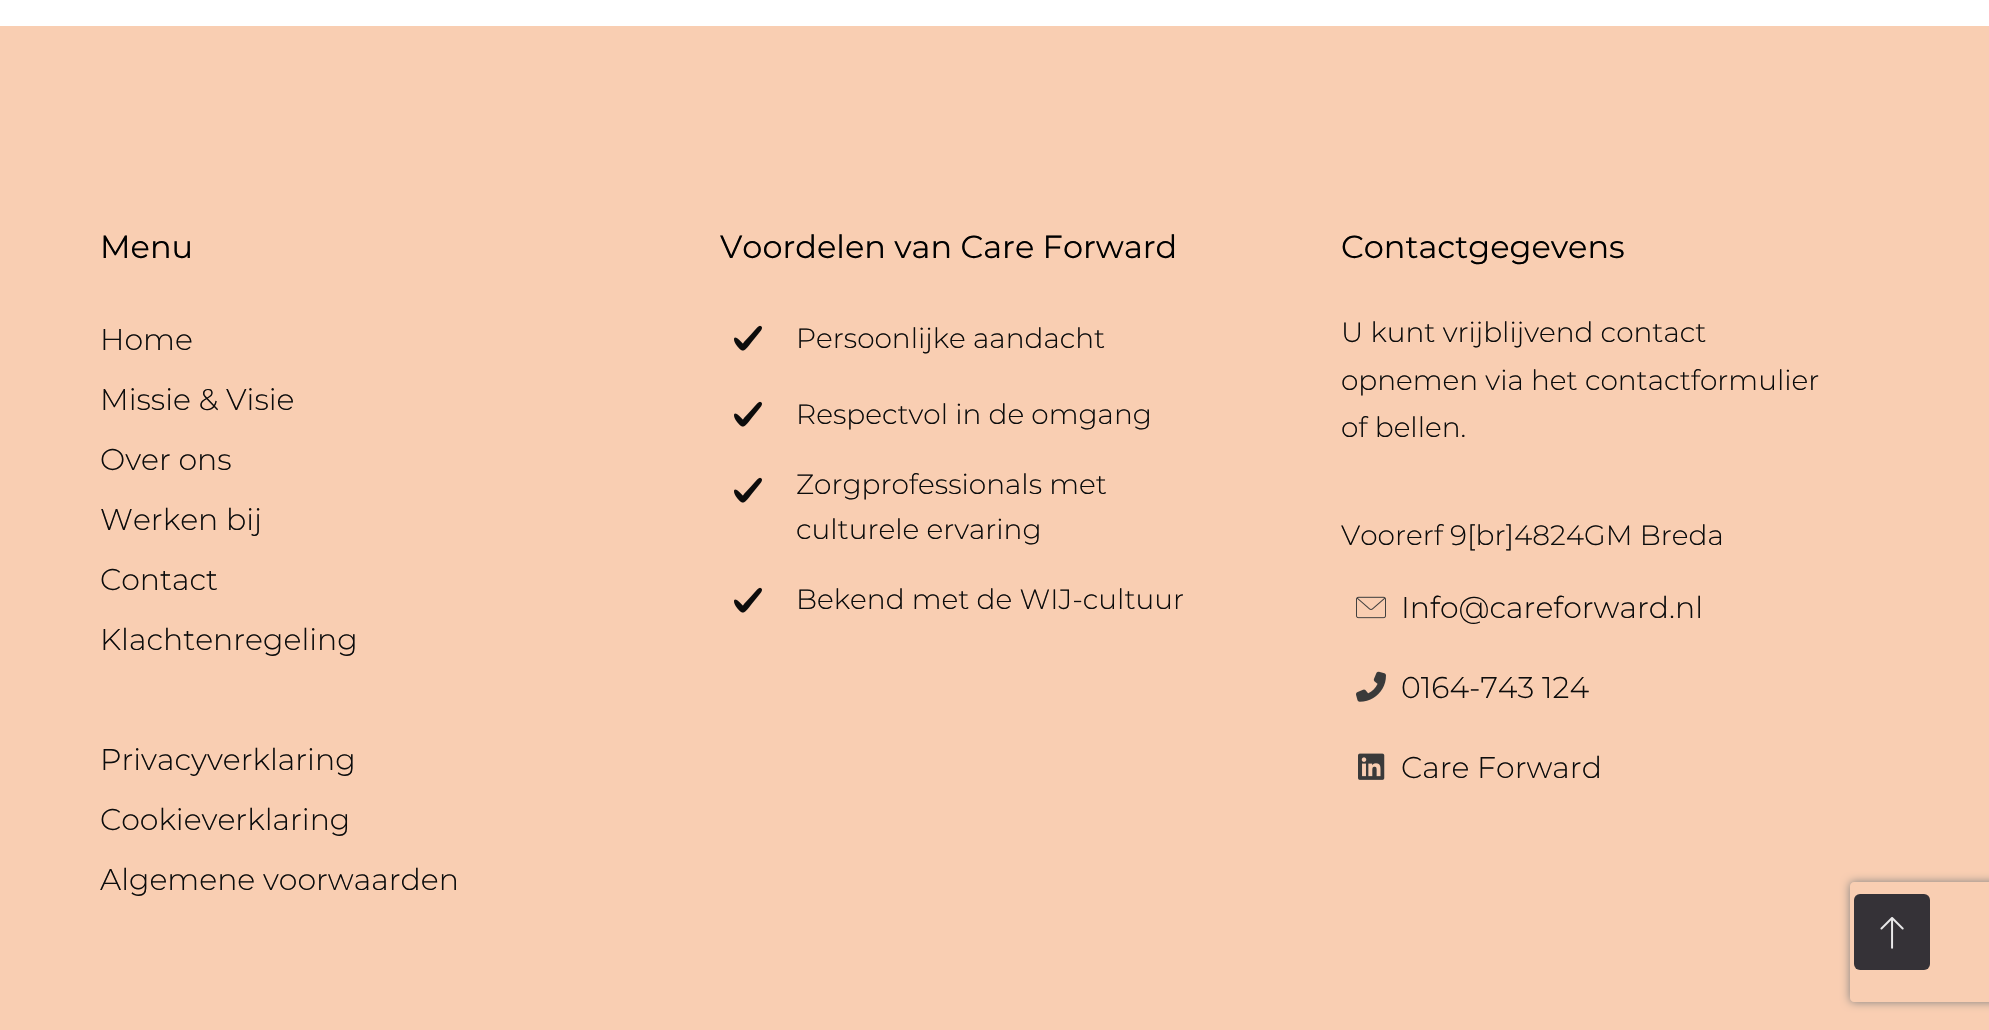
void draw(SkCanvas* canvas) {
	SkPaint fill;
	fill.setAntiAlias(true);
	auto makeFont = [&](const char* family, int weight, float size, bool italic = false) {
		SkFontStyle style(weight, SkFontStyle::kNormal_Width,
			italic ? SkFontStyle::kItalic_Slant : SkFontStyle::kUpright_Slant);
		SkFont result(fontMgr->matchFamilyStyle(family, style), size);
		result.setSubpixel(true);
		return result;
	};
	auto text = [&](const char* s, float x, float y, const SkFont& font) {
		canvas->drawString(s, x, y, font, fill);
	};
	auto box = [&](float l, float t, float r, float b) {
		canvas->drawRect(SkRect::MakeLTRB(l, t, r, b), fill);
	};
	auto roundBox = [&](float l, float t, float r, float b, float radius) {
		canvas->drawRoundRect(SkRect::MakeLTRB(l, t, r, b), radius, radius, fill);
	};
	auto picture = [&](const char* path, float l, float t, float r, float b) {
		auto image = SkImages::DeferredFromEncodedData(SkData::MakeFromFileName(path));
		canvas->drawImageRect(image, SkRect::MakeLTRB(l, t, r, b), SkSamplingOptions());
	};
	canvas->clear(0xFFFFFFFF);
	fill.setColor(0xFFF9CEB2);
	box(0, 26, 1989, 1030);
	picture("image0.png", 734, 325, 762, 351);
	picture("image0.png", 734, 401, 762, 427);
	picture("image0.png", 734, 477, 762, 503);
	picture("image0.png", 734, 587, 762, 613);
	picture("image1.png", 1356, 596, 1386, 619);
	picture("image2.png", 1356, 671, 1386, 702);
	picture("image3.png", 1358, 753, 1385, 780);
	canvas->save();
	canvas->clipPath(SkPathBuilder(SkPathFillType::kEvenOdd).moveTo(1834, 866).lineTo(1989, 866).lineTo(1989, 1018).lineTo(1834, 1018).close().moveTo(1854, 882).lineTo(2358, 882).cubicTo(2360, 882, 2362, 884, 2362, 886).lineTo(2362, 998).cubicTo(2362, 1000, 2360, 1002, 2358, 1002).lineTo(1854, 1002).cubicTo(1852, 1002, 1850, 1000, 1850, 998).lineTo(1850, 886).cubicTo(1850, 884, 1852, 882, 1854, 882).close().detach(), true);
	fill.setColor(0xFF808080);
	fill.setMaskFilter(SkMaskFilter::MakeBlur(kNormal_SkBlurStyle, 5));
	canvas->drawRoundRect(SkRect::MakeLTRB(1850, 882, 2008, 1002), 4, 4, fill);
	fill.setMaskFilter(nullptr);
	canvas->restore();
	fill.setColor(0xFF353237);
	roundBox(1854, 894, 1930, 970, 6);
	picture("image4.png", 1880, 917, 1904, 949);
	auto font1 = makeFont("Montserrat", 400, 32);
	fill.setColor(0xFF000000);
	text("Menu", 100, 258, font1);
	auto font2 = makeFont("Montserrat", 300, 30);
	fill.setColor(0xFF0C0C0C);
	text("Home", 100, 350, font2);
	text("Missie & Visie", 100, 410, font2);
	text("Over ons", 100, 470, font2);
	text("Werken bij", 100, 530, font2);
	text("Contact", 100, 590, font2);
	text("Klachtenregeling", 100, 650, font2);
	text("Privacyverklaring", 100, 770, font2);
	text("Cookieverklaring", 100, 830, font2);
	text("Algemene voorwaarden", 100, 890, font2);
	fill.setColor(0xFF000000);
	text("Voordelen van Care Forward", 720, 258, font1);
	auto font3 = makeFont("Montserrat", 300, 28);
	fill.setColor(0xFF0C0C0C);
	text("Persoonlijke aandacht", 796, 348, font3);
	text("Respectvol in de omgang", 796, 424, font3);
	text("Zorgprofessionals met", 796, 494, font3);
	text("culturele ervaring", 796, 539, font3);
	text("Bekend met de WIJ-cultuur", 796, 609, font3);
	fill.setColor(0xFF000000);
	text("Contactgegevens", 1341, 258, font1);
	fill.setColor(0xFF0C0C0C);
	text("U kunt vrijblijvend contact", 1341, 342, font3);
	text("opnemen via het contactformulier", 1341, 390, font3);
	text("of bellen.", 1341, 437, font3);
	text("Voorerf 9[br]4824GM Breda", 1341, 545, font3);
	text("Info@careforward.nl", 1401, 618, font2);
	text("0164-743 124", 1401, 698, font2);
	text("Care Forward", 1401, 778, font2);
}
